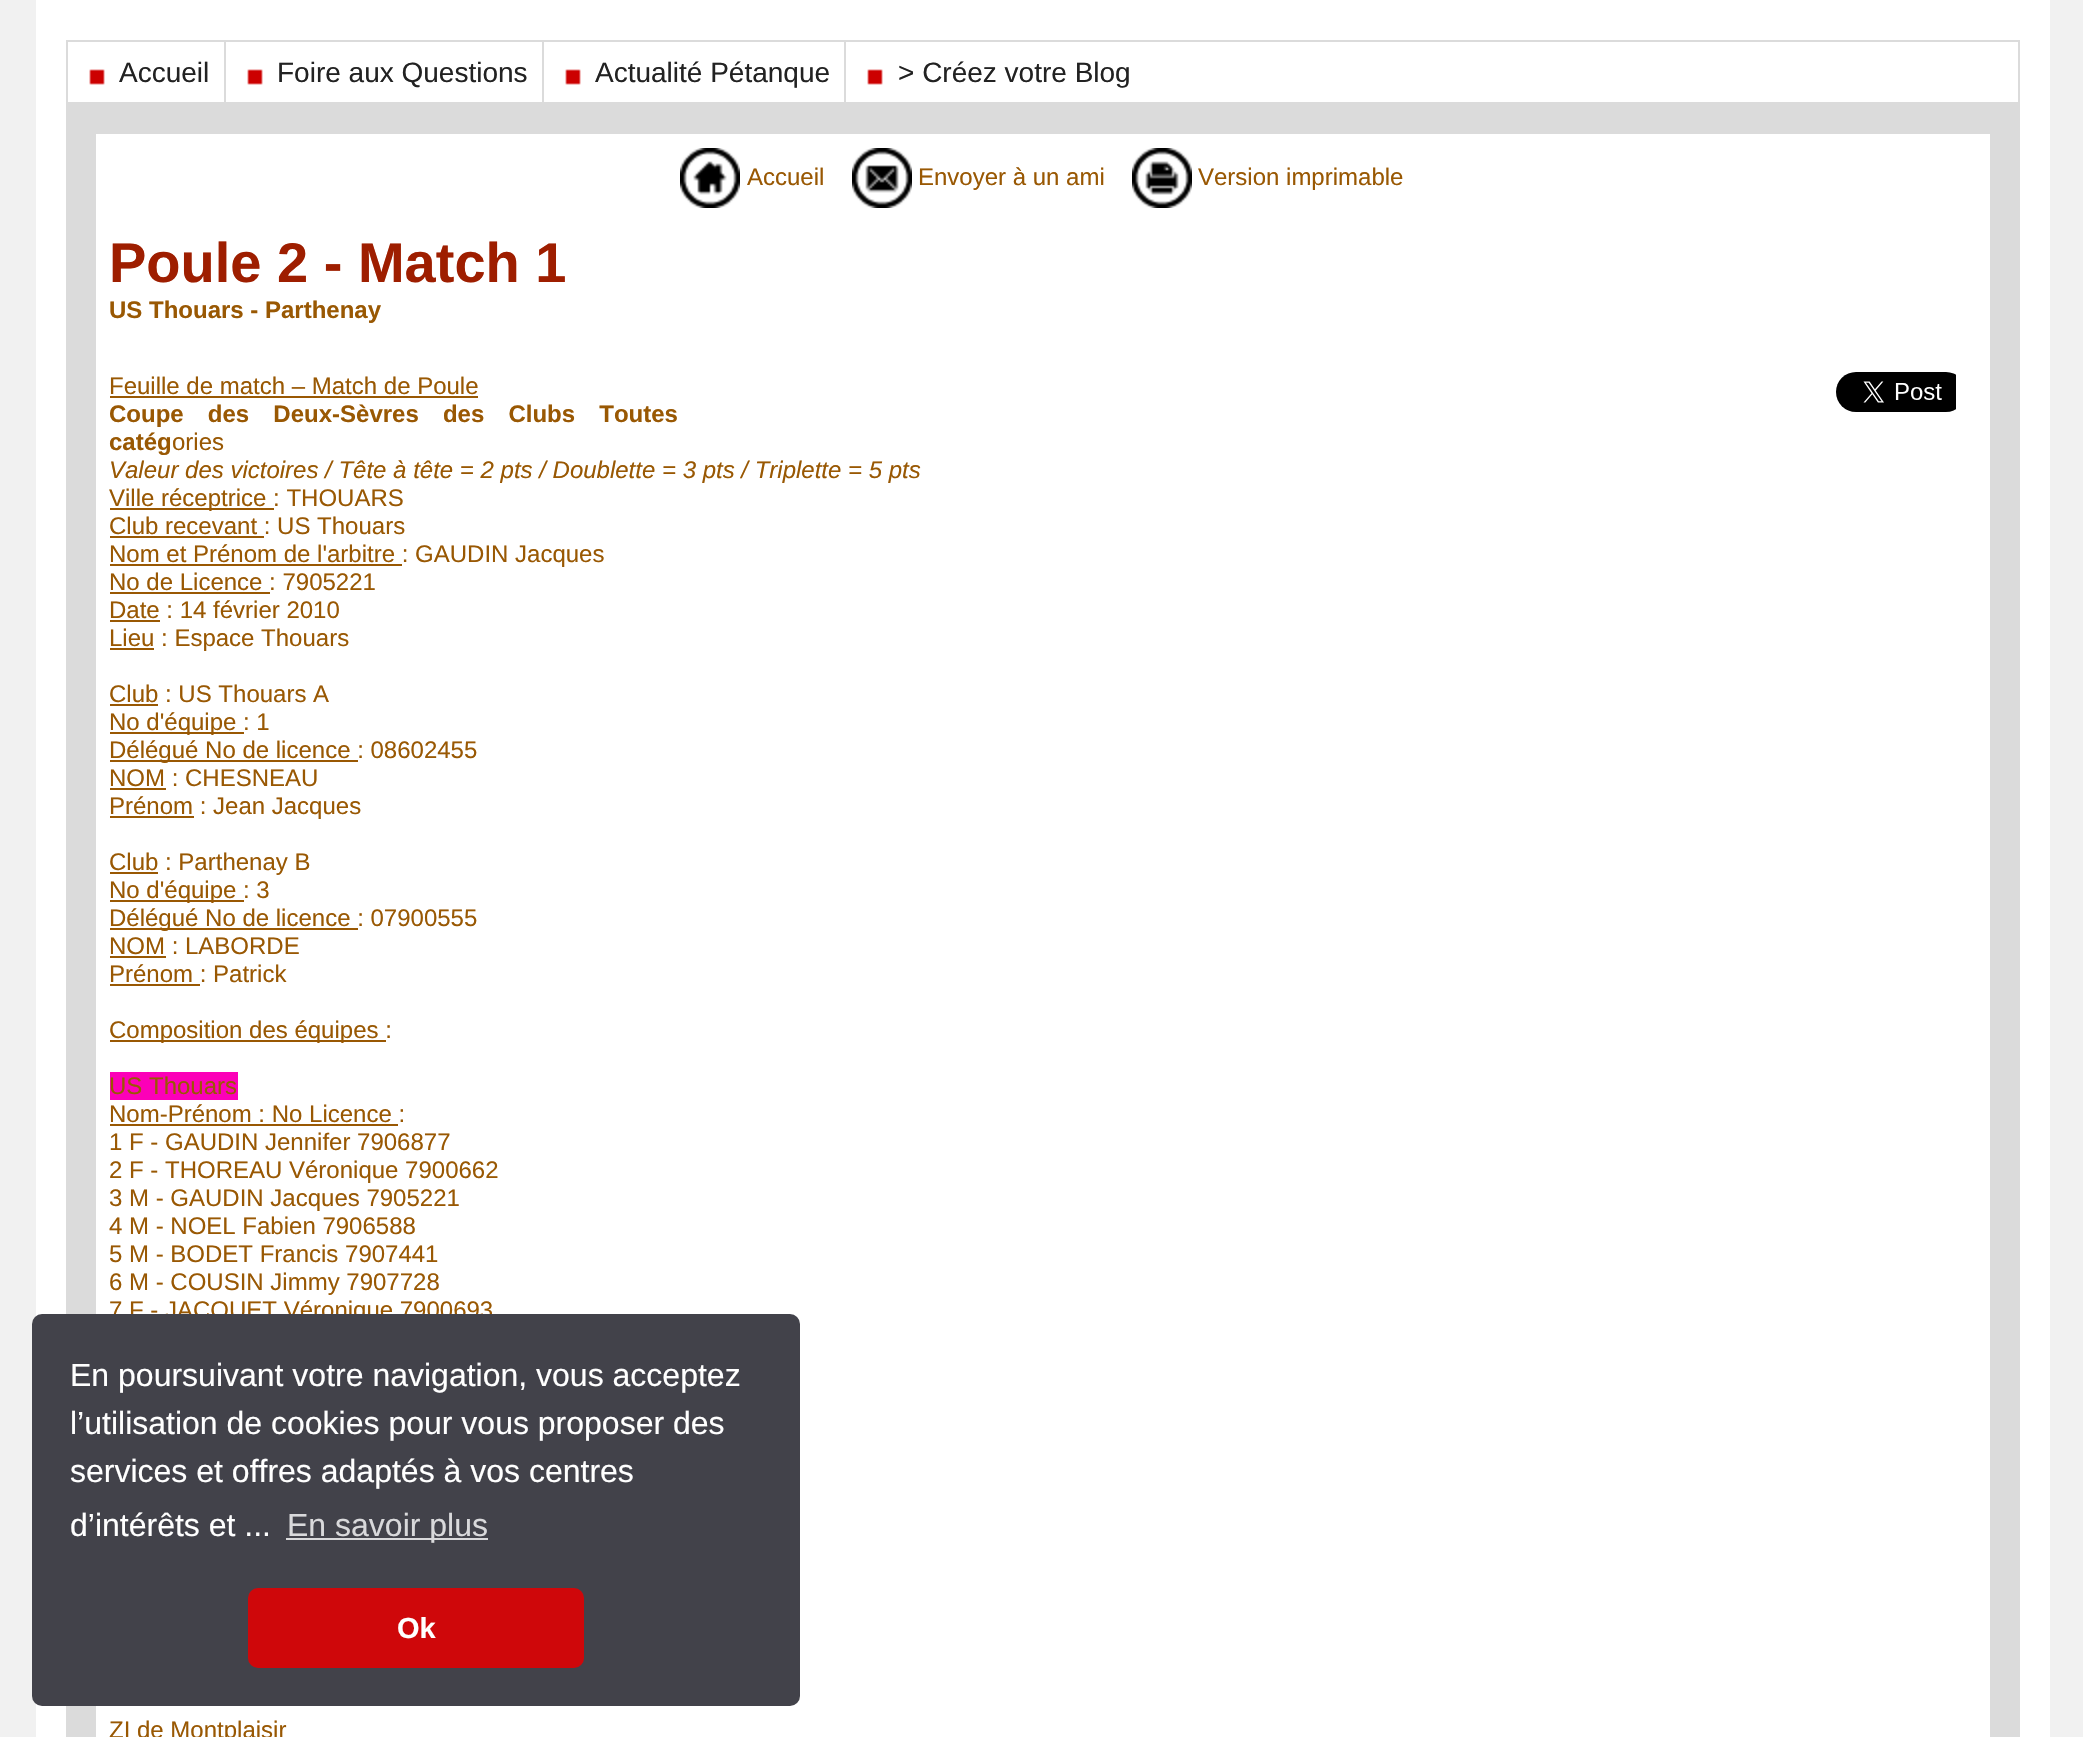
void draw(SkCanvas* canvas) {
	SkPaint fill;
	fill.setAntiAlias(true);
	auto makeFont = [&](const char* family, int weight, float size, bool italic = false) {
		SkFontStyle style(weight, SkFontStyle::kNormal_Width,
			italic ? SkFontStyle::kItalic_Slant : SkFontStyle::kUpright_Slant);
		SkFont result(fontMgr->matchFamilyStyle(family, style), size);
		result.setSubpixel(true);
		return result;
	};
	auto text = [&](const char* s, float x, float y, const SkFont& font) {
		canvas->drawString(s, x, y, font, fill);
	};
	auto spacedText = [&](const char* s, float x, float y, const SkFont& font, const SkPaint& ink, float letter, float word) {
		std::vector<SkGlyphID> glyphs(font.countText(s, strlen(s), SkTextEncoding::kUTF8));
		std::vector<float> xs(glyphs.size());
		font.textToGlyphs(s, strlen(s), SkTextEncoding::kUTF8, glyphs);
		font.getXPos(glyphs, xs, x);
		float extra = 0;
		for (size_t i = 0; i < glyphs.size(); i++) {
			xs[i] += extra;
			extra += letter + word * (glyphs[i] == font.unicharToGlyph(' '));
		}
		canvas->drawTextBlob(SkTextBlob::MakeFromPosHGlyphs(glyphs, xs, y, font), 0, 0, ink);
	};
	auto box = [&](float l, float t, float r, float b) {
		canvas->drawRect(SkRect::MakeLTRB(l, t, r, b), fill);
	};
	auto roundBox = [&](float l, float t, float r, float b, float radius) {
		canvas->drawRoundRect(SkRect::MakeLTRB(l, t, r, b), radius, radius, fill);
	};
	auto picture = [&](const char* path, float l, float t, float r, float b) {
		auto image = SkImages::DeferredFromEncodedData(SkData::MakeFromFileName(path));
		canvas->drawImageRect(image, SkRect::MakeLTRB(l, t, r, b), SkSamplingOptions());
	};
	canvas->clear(0xFFF1F1F1);
	fill.setColor(0xFFFFFFFF);
	box(2020, 0, 2050, 1737);
	box(36, 0, 66, 1737);
	fill.setColor(0xFFDBDBDB);
	box(66, 104, 2020, 1737);
	fill.setColor(0xFFFFFFFF);
	box(66, 0, 2020, 102);
	fill.setColor(0xFFDBDBDB);
	box(66, 40, 2020, 42);
	box(2018, 42, 2020, 104);
	box(66, 102, 2020, 104);
	box(66, 42, 68, 104);
	box(224, 42, 226, 102);
	picture("image0.png", 89, 69, 105, 85);
	box(542, 42, 544, 102);
	picture("image0.png", 247, 69, 263, 85);
	box(844, 42, 846, 102);
	picture("image0.png", 565, 69, 581, 85);
	picture("image0.png", 867, 69, 883, 85);
	fill.setColor(0xFFFFFFFF);
	box(96, 134, 1990, 1737);
	picture("image1.png", 680, 148, 740, 208);
	picture("image2.png", 852, 148, 912, 208);
	picture("image3.png", 1132, 148, 1192, 208);
	fill.setColor(0xFF995803);
	box(110, 396, 478, 398);
	box(110, 508, 274, 510);
	box(110, 536, 264, 538);
	box(110, 564, 402, 566);
	box(110, 592, 270, 594);
	box(110, 620, 160, 622);
	box(110, 648, 154, 650);
	box(110, 704, 158, 706);
	box(110, 732, 244, 734);
	box(110, 760, 358, 762);
	box(110, 788, 166, 790);
	box(110, 816, 194, 818);
	box(110, 872, 158, 874);
	box(110, 900, 244, 902);
	box(110, 928, 358, 930);
	box(110, 956, 166, 958);
	box(110, 984, 200, 986);
	box(110, 1040, 386, 1042);
	fill.setColor(0xFFFC00B8);
	box(110, 1072, 238, 1100);
	fill.setColor(0xFF995803);
	box(110, 1124, 398, 1126);
	picture("image4.png", 1836, 372, 1956, 412);
	auto font1 = makeFont("Liberation Sans", 400, 28);
	fill.setColor(0xFF222222);
	text("Accueil", 119, 82, font1);
	text("Foire aux Questions", 277, 82, font1);
	text("Actualité Pétanque", 595, 82, font1);
	text("> Créez votre Blog", 898, 82, font1);
	auto font2 = makeFont("Liberation Sans", 400, 24);
	fill.setColor(0xFF995803);
	text("Accueil", 747, 185, font2);
	text("Envoyer à un ami", 918, 185, font2);
	text("Version imprimable", 1198, 185, font2);
	auto font3 = makeFont("Liberation Sans", 700, 56);
	fill.setColor(0xFF9E1E00);
	text("Poule 2 - Match 1", 109, 282, font3);
	auto font4 = makeFont("Liberation Sans", 700, 24);
	fill.setColor(0xFF995803);
	text("US Thouars - Parthenay", 109, 318, font4);
	text("Feuille de match – Match de Poule", 109, 394, font2);
	spacedText("Coupe des Deux-Sèvres des Clubs Toutes", 109, 422, font4, fill, 0, 17.5f);
	text("catég", 109, 450, font4);
	text("ories", 172, 450, font2);
	auto font5 = makeFont("Liberation Sans", 400, 24, true);
	text("Valeur des victoires / Tête à tête = 2 pts / Doublette = 3 pts / Triplette = 5 pts", 109, 478, font5);
	text("Ville réceptrice : THOUARS", 109, 506, font2);
	text("Club recevant : US Thouars", 109, 534, font2);
	text("Nom et Prénom de l'arbitre : GAUDIN Jacques", 109, 562, font2);
	text("No de Licence : 7905221", 109, 590, font2);
	text("Date : 14 février 2010", 109, 618, font2);
	text("Lieu : Espace Thouars", 109, 646, font2);
	text("Club : US Thouars A", 109, 702, font2);
	text("No d'équipe : 1", 109, 730, font2);
	text("Délégué No de licence : 08602455", 109, 758, font2);
	text("NOM : CHESNEAU", 109, 786, font2);
	text("Prénom : Jean Jacques", 109, 814, font2);
	text("Club : Parthenay B", 109, 870, font2);
	text("No d'équipe : 3", 109, 898, font2);
	text("Délégué No de licence : 07900555", 109, 926, font2);
	text("NOM : LABORDE", 109, 954, font2);
	text("Prénom : Patrick", 109, 982, font2);
	text("Composition des équipes :", 109, 1038, font2);
	text("US Thouars", 109, 1094, font2);
	text("Nom-Prénom : No Licence :", 109, 1122, font2);
	text("1 F - GAUDIN Jennifer 7906877", 109, 1150, font2);
	text("2 F - THOREAU Véronique 7900662", 109, 1178, font2);
	text("3 M - GAUDIN Jacques 7905221", 109, 1206, font2);
	text("4 M - NOEL Fabien 7906588", 109, 1234, font2);
	text("5 M - BODET Francis 7907441", 109, 1262, font2);
	text("6 M - COUSIN Jimmy 7907728", 109, 1290, font2);
	text("7 F - JACQUET Véronique 7900693", 109, 1318, font2);
	text("ZI de Montplaisir", 109, 1738, font2);
	fill.setColor(0xFF42424A);
	roundBox(32, 1314, 800, 1706, 10);
	auto font6 = makeFont("Liberation Sans", 400, 32);
	fill.setColor(0xFFFFFFFF);
	text("En poursuivant votre navigation, vous acceptez", 70, 1386, font6);
	text("l’utilisation de cookies pour vous proposer des", 70, 1434, font6);
	text("services et offres adaptés à vos centres", 70, 1482, font6);
	text("d’intérêts et ...", 70, 1536, font6);
	fill.setColor(0xFFD9D9DB);
	box(286, 1538, 488, 1540);
	text("En savoir plus", 287, 1536, font6);
	fill.setColor(0xFFCF070A);
	roundBox(248, 1588, 584, 1668, 10);
	auto font7 = makeFont("Liberation Sans", 700, 29);
	fill.setColor(0xFFFFFFFF);
	text("Ok", 397, 1638, font7);
}
